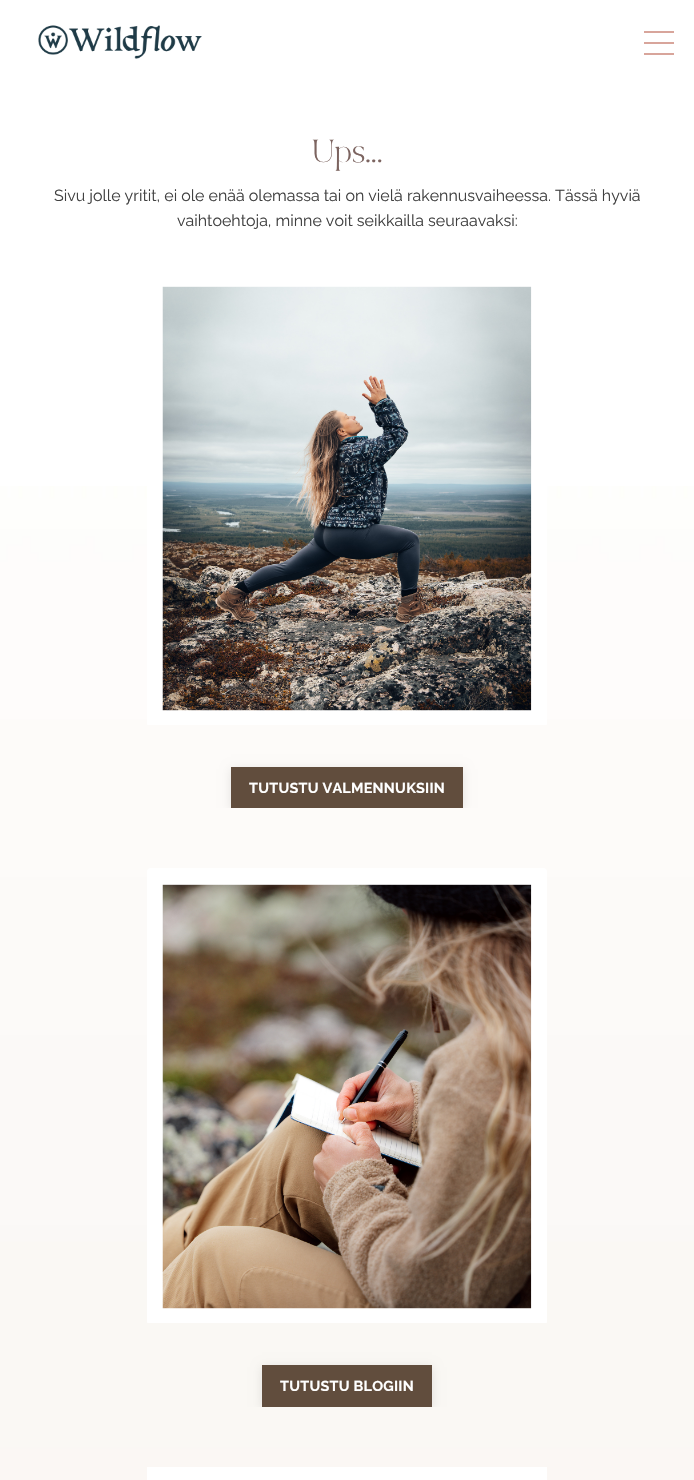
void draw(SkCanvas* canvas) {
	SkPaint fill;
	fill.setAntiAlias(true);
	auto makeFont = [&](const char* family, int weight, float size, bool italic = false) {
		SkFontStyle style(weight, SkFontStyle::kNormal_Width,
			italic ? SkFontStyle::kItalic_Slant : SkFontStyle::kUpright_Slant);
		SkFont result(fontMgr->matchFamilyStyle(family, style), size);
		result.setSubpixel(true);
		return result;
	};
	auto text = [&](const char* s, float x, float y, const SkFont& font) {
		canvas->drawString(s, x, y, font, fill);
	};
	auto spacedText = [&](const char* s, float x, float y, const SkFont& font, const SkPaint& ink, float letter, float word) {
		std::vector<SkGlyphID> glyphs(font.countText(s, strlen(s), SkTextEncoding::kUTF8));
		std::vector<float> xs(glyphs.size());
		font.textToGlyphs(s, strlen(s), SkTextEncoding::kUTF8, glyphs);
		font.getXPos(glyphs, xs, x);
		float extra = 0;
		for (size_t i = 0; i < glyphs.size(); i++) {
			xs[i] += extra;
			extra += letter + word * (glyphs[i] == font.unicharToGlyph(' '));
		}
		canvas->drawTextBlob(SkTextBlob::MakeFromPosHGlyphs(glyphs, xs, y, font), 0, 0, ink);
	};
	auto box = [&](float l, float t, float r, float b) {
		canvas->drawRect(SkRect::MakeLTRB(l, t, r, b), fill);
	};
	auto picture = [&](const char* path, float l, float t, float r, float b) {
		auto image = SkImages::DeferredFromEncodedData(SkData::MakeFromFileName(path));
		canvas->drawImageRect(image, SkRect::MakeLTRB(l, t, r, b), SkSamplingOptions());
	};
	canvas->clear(0xFFFFFFFF);
	picture("image0.png", 38, 25, 202, 59);
	fill.setColor(0xFFD8A59B);
	box(644, 31, 674, 33);
	box(644, 42, 674, 44);
	box(644, 53, 674, 55);
	picture("image1.png", 0, 486, 694, 1480);
	picture("image2.png", 147, 286, 547, 725);
	canvas->save();
	canvas->clipPath(SkPathBuilder().moveTo(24, 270).lineTo(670, 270).cubicTo(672, 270, 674, 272, 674, 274).lineTo(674, 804).cubicTo(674, 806, 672, 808, 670, 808).lineTo(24, 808).cubicTo(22, 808, 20, 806, 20, 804).lineTo(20, 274).cubicTo(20, 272, 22, 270, 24, 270).close().detach(), true);
	fill.setColor(0x1A000000);
	fill.setMaskFilter(SkMaskFilter::MakeBlur(kNormal_SkBlurStyle, 5));
	canvas->drawRect(SkRect::MakeLTRB(231, 769, 463, 810), fill);
	fill.setMaskFilter(nullptr);
	canvas->restore();
	fill.setColor(0xFF614D3D);
	box(231, 767, 463, 808);
	picture("image3.png", 147, 868, 547, 1323);
	canvas->save();
	canvas->clipPath(SkPathBuilder().moveTo(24, 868).lineTo(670, 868).cubicTo(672, 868, 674, 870, 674, 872).lineTo(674, 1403).cubicTo(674, 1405, 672, 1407, 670, 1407).lineTo(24, 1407).cubicTo(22, 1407, 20, 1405, 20, 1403).lineTo(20, 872).cubicTo(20, 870, 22, 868, 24, 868).close().detach(), true);
	fill.setColor(0x1A000000);
	fill.setMaskFilter(SkMaskFilter::MakeBlur(kNormal_SkBlurStyle, 5));
	canvas->drawRect(SkRect::MakeLTRB(262, 1367, 432, 1409), fill);
	fill.setMaskFilter(nullptr);
	canvas->restore();
	fill.setColor(0xFF614D3D);
	box(262, 1365, 432, 1407);
	fill.setColor(0xFFFFFFFF);
	box(147, 1467, 547, 1480);
	auto font1 = makeFont("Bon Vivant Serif", 400, 32);
	fill.setColor(0xFF7C6460);
	text("Ups...", 312, 162, font1);
	auto font2 = makeFont("Raleway", 400, 16);
	fill.setColor(0xFF404040);
	text("Sivu jolle yritit, ei ole enää olemassa tai on vielä rakennusvaiheessa. Tässä hyviä", 54, 201, font2);
	text("vaihtoehtoja, minne voit seikkailla seuraavaksi:", 177, 226, font2);
	auto font3 = makeFont("Raleway", 700, 14.4f);
	fill.setColor(0xFFFFFFFF);
	spacedText("TUTUSTU VALMENNUKSIIN", 249, 793, font3, fill, 0.25f, 0);
	spacedText("TUTUSTU BLOGIIN", 280, 1391, font3, fill, 0.25f, 0);
}
